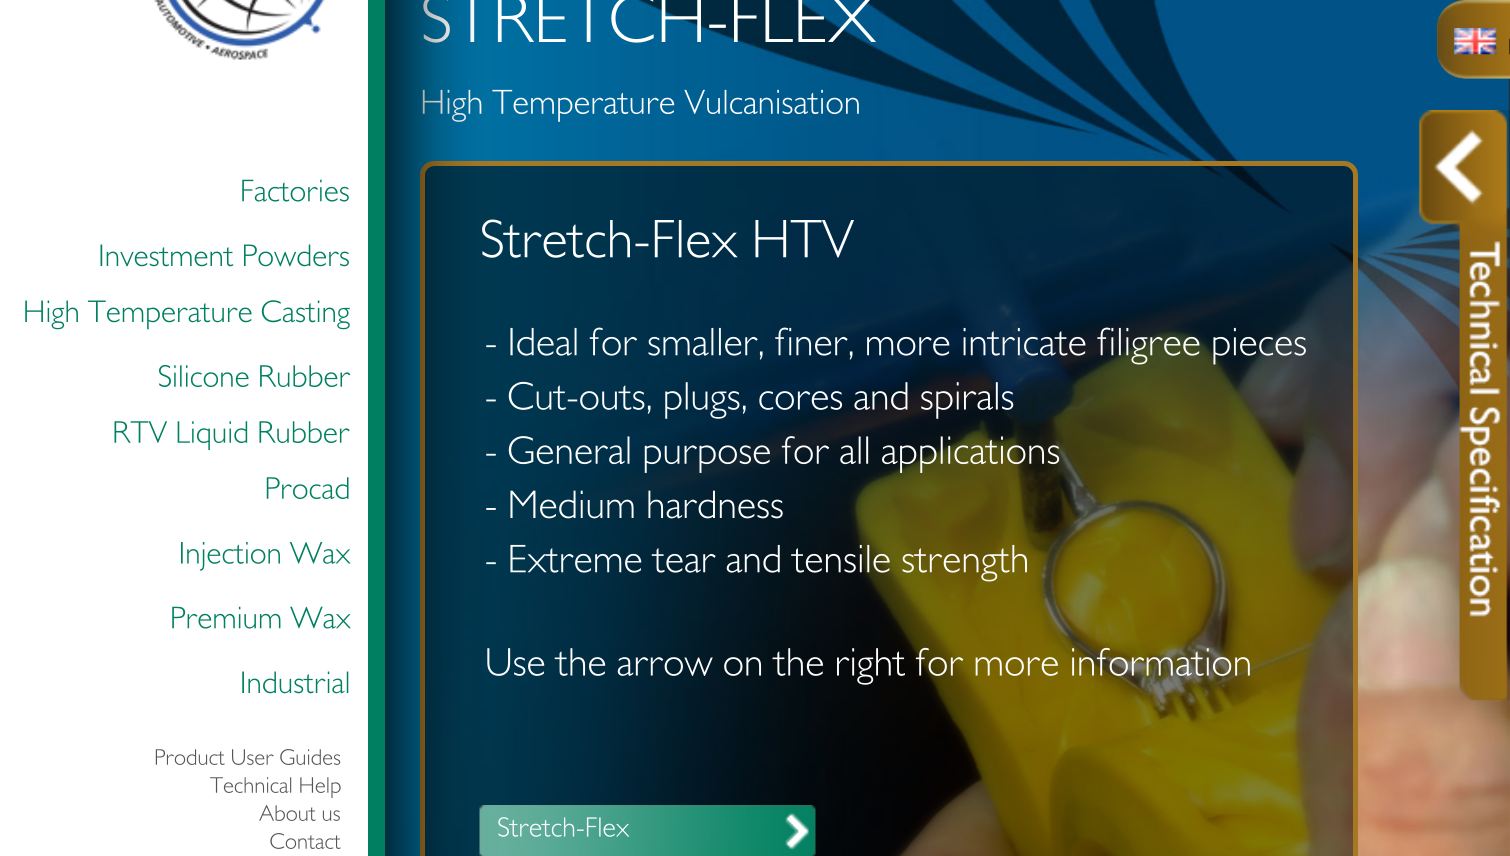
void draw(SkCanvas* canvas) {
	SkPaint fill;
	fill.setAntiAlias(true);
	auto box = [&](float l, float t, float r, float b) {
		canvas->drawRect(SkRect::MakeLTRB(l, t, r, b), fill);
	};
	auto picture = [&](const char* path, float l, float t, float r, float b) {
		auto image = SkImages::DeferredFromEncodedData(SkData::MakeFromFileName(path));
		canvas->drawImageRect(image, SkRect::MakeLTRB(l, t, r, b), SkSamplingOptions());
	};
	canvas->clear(0xFFFFFFFF);
	picture("image29.png", 385, 0, 1510, 856);
	picture("image14.png", 423, 0, 876, 43);
	picture("image15.png", 422, 89, 859, 122);
	fill.setColor(0x80000000);
	canvas->drawRoundRect(SkRect::MakeLTRB(422.5f, 163.5f, 1355.5f, 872.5f), 11.5f, 11.5f, fill);
	fill.setStyle(SkPaint::kStroke_Style);
	fill.setStrokeWidth(5);
	fill.setColor(0xFFA77824);
	canvas->drawRoundRect(SkRect::MakeLTRB(422.5f, 163.5f, 1355.5f, 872.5f), 11.5f, 11.5f, fill);
	picture("image16.png", 482, 219, 854, 258);
	picture("image17.png", 486, 327, 1306, 365);
	picture("image18.png", 486, 381, 1014, 419);
	picture("image19.png", 486, 436, 1060, 473);
	picture("image20.png", 486, 490, 783, 519);
	picture("image21.png", 486, 544, 1027, 582);
	picture("image22.png", 487, 647, 1250, 685);
	picture("image23.png", 479, 805, 816, 856);
	picture("image24.png", 498, 817, 630, 837);
	fill.setStyle(SkPaint::kFill_Style);
	fill.setColor(0xFF000000);
	fill.setMaskFilter(SkMaskFilter::MakeBlur(kNormal_SkBlurStyle, 40));
	canvas->drawRect(SkRect::MakeLTRB(16, -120, 401, 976), fill);
	fill.setMaskFilter(nullptr);
	fill.setColor(0xFFFFFFFF);
	box(0, 0, 368, 856);
	fill.setColor(0xFF008060);
	box(368, 0, 385, 856);
	picture("image0.png", 153, 0, 325, 60);
	picture("image1.png", 242, 179, 349, 202);
	picture("image2.png", 100, 244, 349, 267);
	picture("image3.png", 25, 300, 350, 330);
	picture("image4.png", 159, 365, 351, 387);
	picture("image5.png", 114, 421, 350, 450);
	picture("image6.png", 266, 477, 349, 499);
	picture("image7.png", 181, 542, 351, 571);
	picture("image8.png", 172, 606, 351, 629);
	picture("image9.png", 242, 671, 349, 694);
	picture("image10.png", 155, 749, 341, 765);
	picture("image11.png", 210, 777, 341, 798);
	picture("image12.png", 259, 805, 340, 821);
	picture("image13.png", 270, 833, 341, 849);
	picture("image25.png", 1418, 110, 1510, 702);
	picture("image26.png", 1437, 0, 1510, 79);
	picture("image27.png", 1454, 28, 1497, 55);
	picture("image28.png", 1509, 38, 1510, 55);
}
